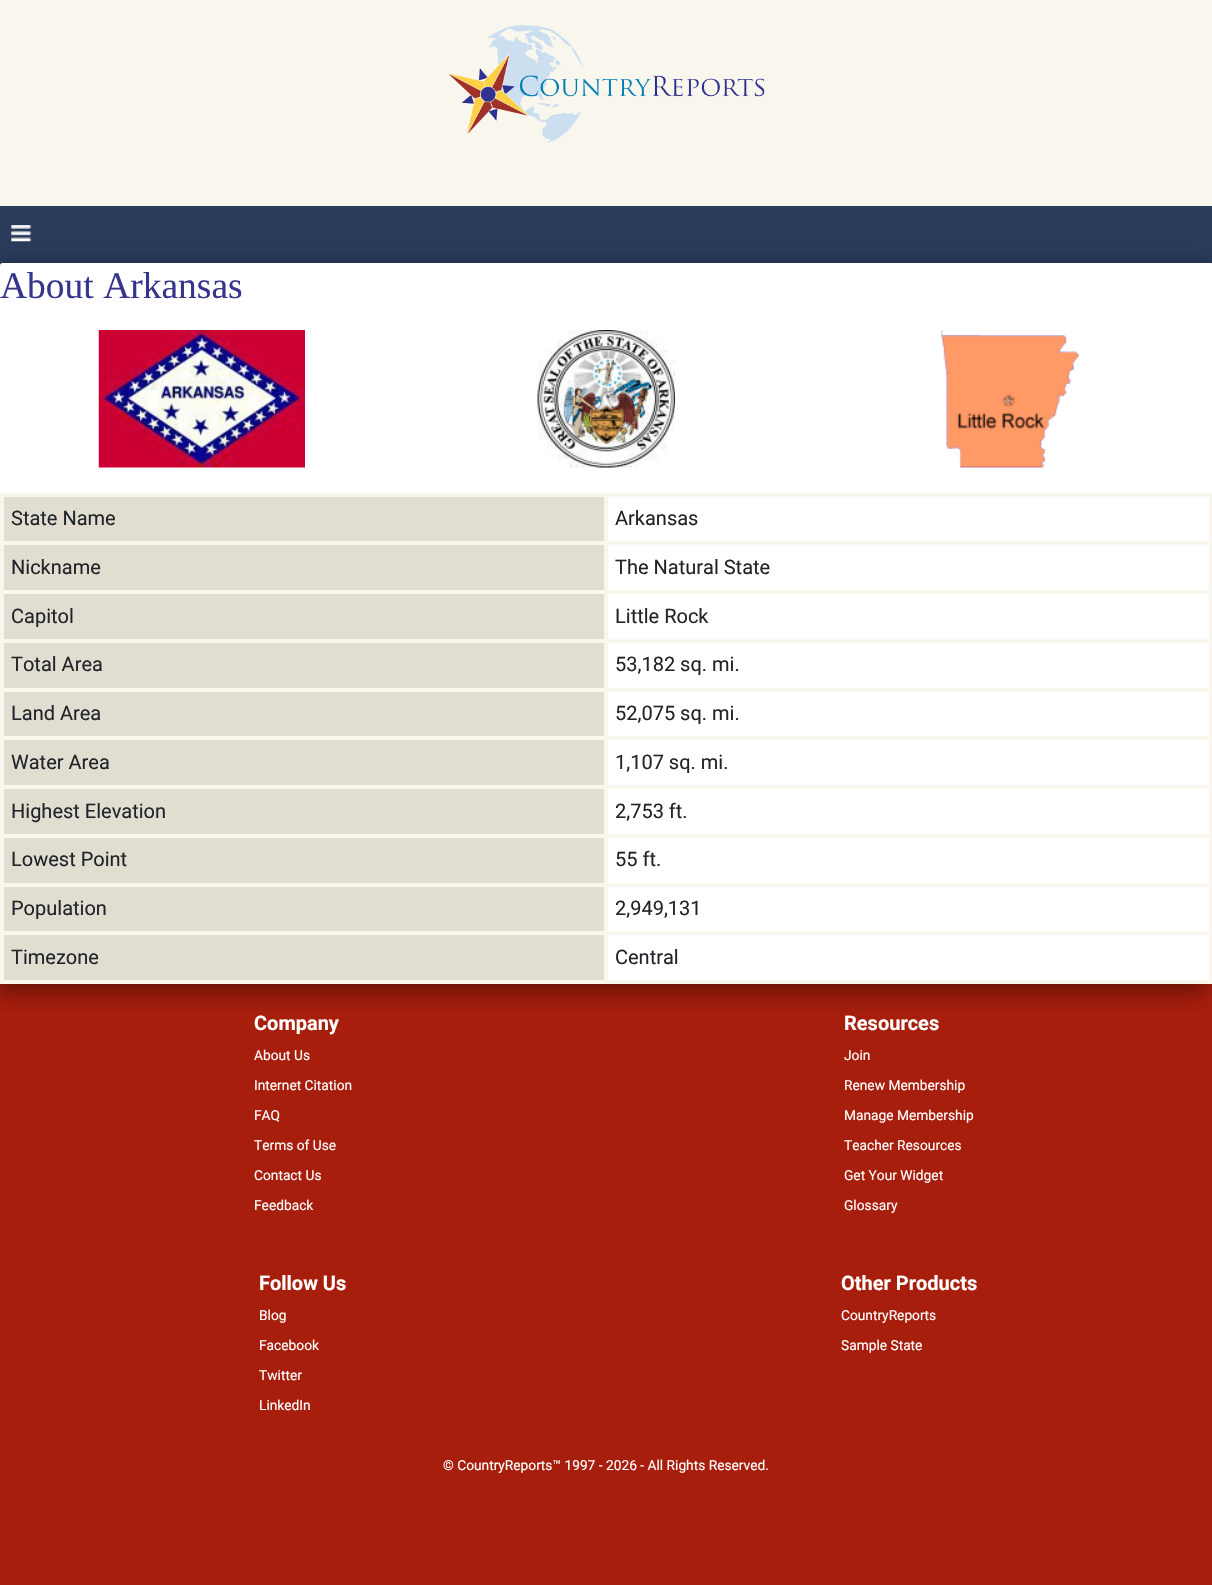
void draw(SkCanvas* canvas) {
	SkPaint fill;
	fill.setAntiAlias(true);
	auto makeFont = [&](const char* family, int weight, float size, bool italic = false) {
		SkFontStyle style(weight, SkFontStyle::kNormal_Width,
			italic ? SkFontStyle::kItalic_Slant : SkFontStyle::kUpright_Slant);
		SkFont result(fontMgr->matchFamilyStyle(family, style), size);
		result.setSubpixel(true);
		return result;
	};
	auto text = [&](const char* s, float x, float y, const SkFont& font) {
		canvas->drawString(s, x, y, font, fill);
	};
	auto box = [&](float l, float t, float r, float b) {
		canvas->drawRect(SkRect::MakeLTRB(l, t, r, b), fill);
	};
	auto roundBox = [&](float l, float t, float r, float b, float radius) {
		canvas->drawRoundRect(SkRect::MakeLTRB(l, t, r, b), radius, radius, fill);
	};
	auto picture = [&](const char* path, float l, float t, float r, float b) {
		auto image = SkImages::DeferredFromEncodedData(SkData::MakeFromFileName(path));
		canvas->drawImageRect(image, SkRect::MakeLTRB(l, t, r, b), SkSamplingOptions());
	};
	canvas->clear(0xFFA81E0C);
	fill.setColor(0x40000000);
	fill.setMaskFilter(SkMaskFilter::MakeBlur(kNormal_SkBlurStyle, 6));
	canvas->drawRoundRect(SkRect::MakeLTRB(0, 6, 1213, 269), 2.5f, 2.5f, fill);
	fill.setMaskFilter(nullptr);
	fill.setMaskFilter(SkMaskFilter::MakeBlur(kNormal_SkBlurStyle, 6));
	canvas->drawRoundRect(SkRect::MakeLTRB(0, 0, 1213, 263), 2.5f, 2.5f, fill);
	fill.setMaskFilter(nullptr);
	fill.setColor(0xFFFFFFFF);
	box(0, 0, 1212, 3);
	fill.setColor(0xFFF9F6ED);
	roundBox(0, 0, 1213, 263, 2.5f);
	picture("image0.png", 447, 25, 765, 144);
	fill.setColor(0xFF2A3A5B);
	box(0, 206, 1212, 263);
	fill.setColor(0x40000000);
	fill.setMaskFilter(SkMaskFilter::MakeBlur(kNormal_SkBlurStyle, 9.5f));
	canvas->drawRoundRect(SkRect::MakeLTRB(0, 263, 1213, 984), 2.5f, 2.5f, fill);
	fill.setMaskFilter(nullptr);
	fill.setMaskFilter(SkMaskFilter::MakeBlur(kNormal_SkBlurStyle, 11));
	canvas->drawRoundRect(SkRect::MakeLTRB(-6, 275, 1206, 996), 2.5f, 2.5f, fill);
	fill.setMaskFilter(nullptr);
	picture("image1.png", 11, 225, 32, 242);
	fill.setColor(0xFFFFFFFF);
	roundBox(0, 263, 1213, 984, 2.5f);
	picture("image2.png", 98, 330, 305, 468);
	picture("image3.png", 537, 330, 675, 468);
	picture("image4.png", 941, 330, 1079, 468);
	fill.setColor(0xFFE1DDD1);
	box(4, 497, 604, 541);
	fill.setColor(0xFFF9F6ED);
	box(604, 493, 1212, 497);
	box(604, 541, 1212, 545);
	box(604, 590, 1212, 594);
	box(604, 639, 1212, 643);
	box(604, 688, 1212, 692);
	box(604, 736, 1212, 740);
	box(604, 785, 1212, 789);
	box(604, 834, 1212, 838);
	box(604, 883, 1212, 887);
	box(604, 931, 1212, 935);
	box(1209, 931, 1212, 984);
	box(604, 980, 1212, 984);
	box(604, 931, 608, 984);
	box(0, 931, 608, 935);
	box(604, 883, 608, 935);
	box(0, 883, 608, 887);
	box(604, 834, 608, 886);
	box(0, 834, 608, 838);
	box(604, 785, 608, 838);
	box(0, 785, 608, 789);
	box(604, 736, 608, 789);
	box(0, 736, 608, 740);
	box(604, 688, 608, 740);
	box(0, 688, 608, 692);
	box(604, 639, 608, 691);
	box(0, 639, 608, 643);
	box(604, 590, 608, 643);
	box(0, 590, 608, 594);
	box(604, 541, 608, 594);
	box(0, 541, 608, 545);
	box(604, 493, 608, 545);
	box(0, 493, 608, 497);
	box(0, 980, 608, 984);
	box(0, 931, 4, 984);
	box(0, 883, 4, 935);
	box(0, 834, 4, 886);
	box(0, 785, 4, 838);
	box(0, 736, 4, 789);
	box(0, 688, 4, 740);
	box(0, 639, 4, 691);
	box(0, 590, 4, 643);
	box(0, 541, 4, 594);
	box(0, 493, 4, 545);
	box(1209, 883, 1212, 935);
	box(1209, 834, 1212, 886);
	box(1209, 785, 1212, 838);
	box(1209, 736, 1212, 789);
	box(1209, 688, 1212, 740);
	box(1209, 639, 1212, 691);
	box(1209, 590, 1212, 643);
	box(1209, 541, 1212, 594);
	box(1209, 493, 1212, 545);
	fill.setColor(0xFFE1DDD1);
	box(4, 545, 604, 590);
	box(4, 594, 604, 639);
	box(4, 643, 604, 688);
	box(4, 692, 604, 736);
	box(4, 740, 604, 785);
	box(4, 789, 604, 834);
	box(4, 838, 604, 883);
	box(4, 887, 604, 931);
	box(4, 935, 604, 980);
	auto font1 = makeFont("Liberation Serif", 400, 37.5f);
	fill.setColor(0xFF35358D);
	text("About Arkansas", 0, 298, font1);
	auto font2 = makeFont("Roboto", 400, 20);
	fill.setColor(0xFF212529);
	text("State Name", 11, 525, font2);
	text("Arkansas", 615, 525, font2);
	text("Nickname", 11, 574, font2);
	text("The Natural State", 615, 574, font2);
	text("Capitol", 11, 623, font2);
	text("Little Rock", 615, 623, font2);
	text("Total Area", 11, 671, font2);
	text("53,182 sq. mi.", 615, 671, font2);
	text("Land Area", 11, 720, font2);
	text("52,075 sq. mi.", 615, 720, font2);
	text("Water Area", 11, 769, font2);
	text("1,107 sq. mi.", 615, 769, font2);
	text("Highest Elevation", 11, 818, font2);
	text("2,753 ft.", 615, 818, font2);
	text("Lowest Point", 11, 866, font2);
	text("55 ft.", 615, 866, font2);
	text("Population", 11, 915, font2);
	text("2,949,131", 615, 915, font2);
	text("Timezone", 11, 964, font2);
	text("Central", 615, 964, font2);
	auto font3 = makeFont("Roboto", 700, 20);
	fill.setColor(0xFFFFFFFF);
	text("Company", 254, 1030, font3);
	auto font4 = makeFont("Roboto", 400, 13.75f);
	text("About Us", 254, 1060, font4);
	text("Internet Citation", 254, 1090, font4);
	text("FAQ", 254, 1120, font4);
	text("Terms of Use", 254, 1150, font4);
	text("Contact Us", 254, 1180, font4);
	text("Feedback", 254, 1210, font4);
	text("Resources", 844, 1030, font3);
	text("Join", 844, 1060, font4);
	text("Renew Membership", 844, 1090, font4);
	text("Manage Membership", 844, 1120, font4);
	text("Teacher Resources", 844, 1150, font4);
	text("Get Your Widget", 844, 1180, font4);
	text("Glossary", 844, 1210, font4);
	text("Follow Us", 259, 1290, font3);
	text("Blog", 259, 1320, font4);
	text("Facebook", 259, 1350, font4);
	text("Twitter", 259, 1380, font4);
	text("LinkedIn", 259, 1410, font4);
	text("Other Products", 841, 1290, font3);
	text("CountryReports", 841, 1320, font4);
	text("Sample State", 841, 1350, font4);
	text("© CountryReports™ 1997 - 2026 - All Rights Reserved.", 443, 1470, font4);
}
